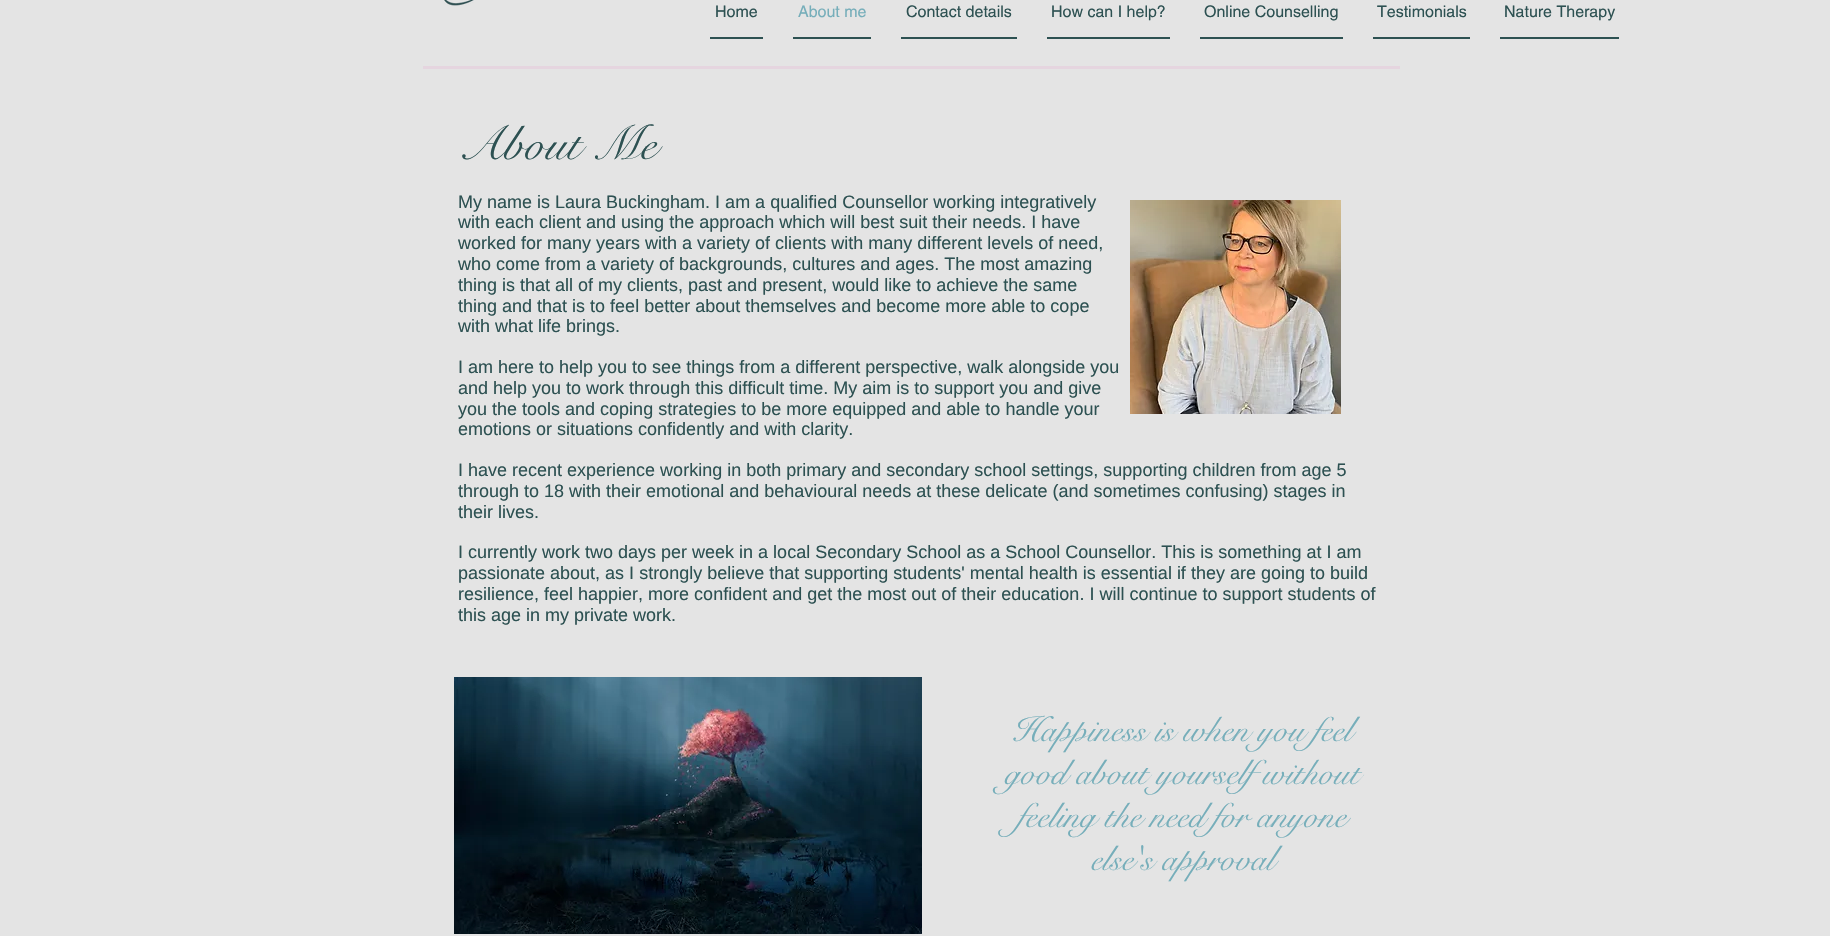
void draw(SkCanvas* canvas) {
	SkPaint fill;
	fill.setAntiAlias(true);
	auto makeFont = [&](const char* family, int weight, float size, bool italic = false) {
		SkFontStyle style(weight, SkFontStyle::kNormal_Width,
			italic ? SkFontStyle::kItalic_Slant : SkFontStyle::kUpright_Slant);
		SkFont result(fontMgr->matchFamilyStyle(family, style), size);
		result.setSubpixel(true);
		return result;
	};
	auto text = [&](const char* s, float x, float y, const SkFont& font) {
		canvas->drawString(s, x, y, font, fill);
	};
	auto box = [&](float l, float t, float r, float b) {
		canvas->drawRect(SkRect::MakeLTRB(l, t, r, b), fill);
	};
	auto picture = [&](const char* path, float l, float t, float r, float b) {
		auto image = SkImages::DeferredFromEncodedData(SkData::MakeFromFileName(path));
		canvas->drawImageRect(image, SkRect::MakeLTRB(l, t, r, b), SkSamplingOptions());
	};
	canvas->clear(0xFFE4E4E4);
	picture("image0.png", 444, 0, 474, 6);
	fill.setColor(0xFF2D5152);
	box(710, 37, 763, 39);
	box(793, 37, 871, 39);
	box(901, 37, 1017, 39);
	box(1047, 37, 1170, 39);
	box(1200, 37, 1343, 39);
	box(1373, 37, 1470, 39);
	box(1500, 37, 1619, 39);
	fill.setColor(0xFFE5D5DF);
	box(423, 66, 1400, 69);
	picture("image1.png", 1130, 200, 1341, 414);
	picture("image2.png", 454, 677, 922, 934);
	auto font1 = makeFont("helvetica", 400, 16);
	fill.setColor(0xFF2D5152);
	text("Home", 715, 17, font1);
	fill.setColor(0xFF76AEBA);
	text("About me", 798, 17, font1);
	fill.setColor(0xFF2D5152);
	text("Contact details", 906, 17, font1);
	text("How can I help?", 1051, 17, font1);
	text("Online Counselling", 1204, 17, font1);
	text("Testimonials", 1377, 17, font1);
	text("Nature Therapy", 1504, 17, font1);
	auto font2 = makeFont("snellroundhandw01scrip", 400, 48);
	text("About Me", 458, 159, font2);
	auto font3 = makeFont("Liberation Sans", 400, 18);
	text("My name is Laura Buckingham. I am a qualified Counsellor working integratively", 458, 208, font3);
	text("with each client and using the approach which will best suit their needs. I have", 458, 228, font3);
	text("worked for many years with a variety of clients with many different levels of need,", 458, 249, font3);
	text("who come from a variety of backgrounds, cultures and ages. The most amazing", 458, 270, font3);
	text("thing is that all of my clients, past and present, would like to achieve the same", 458, 291, font3);
	text("thing and that is to feel better about themselves and become more able to cope", 458, 312, font3);
	text("with what life brings.", 458, 332, font3);
	text("I am here to help you to see things from a different perspective, walk alongside you", 458, 373, font3);
	text("and help you to work through this difficult time. My aim is to support you and give", 458, 394, font3);
	text("you the tools and coping strategies to be more equipped and able to handle your", 458, 415, font3);
	text("emotions or situations confidently and with clarity.", 458, 435, font3);
	text("I have recent experience working in both primary and secondary school settings, supporting children from age 5", 458, 476, font3);
	text("through to 18 with their emotional and behavioural needs at these delicate (and sometimes confusing) stages in", 458, 497, font3);
	text("their lives.", 458, 518, font3);
	text("I currently work two days per week in a local Secondary School as a School Counsellor. This is something at I am", 458, 558, font3);
	text("passionate about, as I strongly believe that supporting students' mental health is essential if they are going to build", 458, 579, font3);
	text("resilience, feel happier, more confident and get the most out of their education. I will continue to support students of", 458, 600, font3);
	text("this age in my private work.", 458, 621, font3);
	auto font4 = makeFont("snellroundhandw01scrip", 400, 35);
	fill.setColor(0xFF76AEBA);
	text("Happiness is when you feel", 1012, 741, font4);
	text("good about yourself without", 1005, 784, font4);
	text("feeling the need for anyone", 1018, 827, font4);
	text("else's approval", 1091, 870, font4);
}
